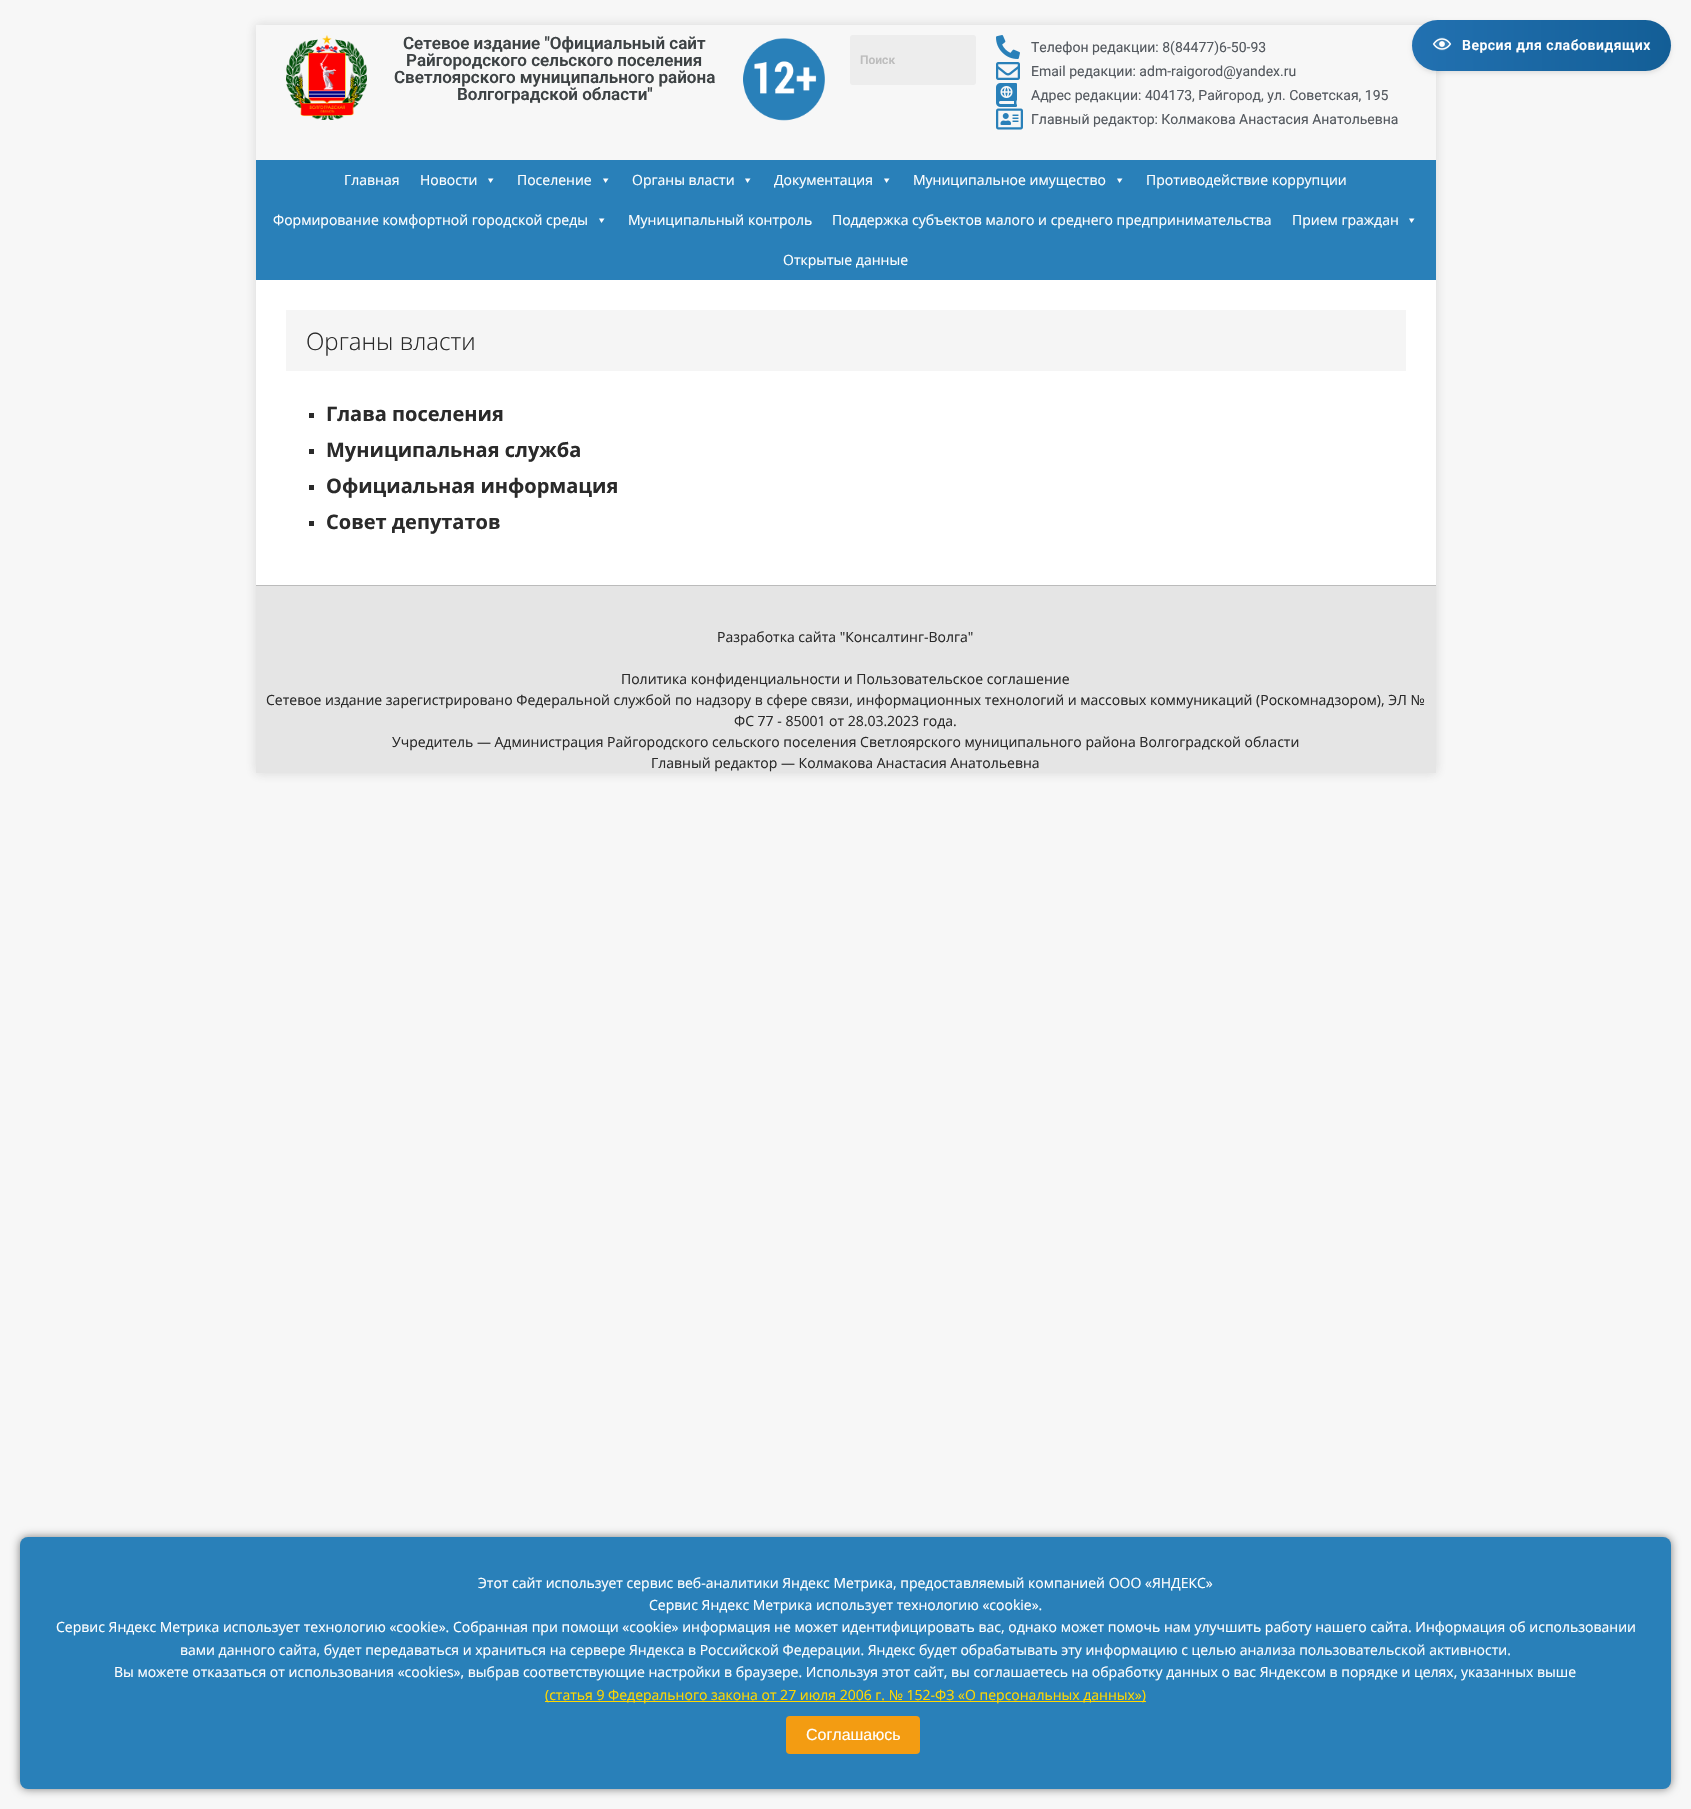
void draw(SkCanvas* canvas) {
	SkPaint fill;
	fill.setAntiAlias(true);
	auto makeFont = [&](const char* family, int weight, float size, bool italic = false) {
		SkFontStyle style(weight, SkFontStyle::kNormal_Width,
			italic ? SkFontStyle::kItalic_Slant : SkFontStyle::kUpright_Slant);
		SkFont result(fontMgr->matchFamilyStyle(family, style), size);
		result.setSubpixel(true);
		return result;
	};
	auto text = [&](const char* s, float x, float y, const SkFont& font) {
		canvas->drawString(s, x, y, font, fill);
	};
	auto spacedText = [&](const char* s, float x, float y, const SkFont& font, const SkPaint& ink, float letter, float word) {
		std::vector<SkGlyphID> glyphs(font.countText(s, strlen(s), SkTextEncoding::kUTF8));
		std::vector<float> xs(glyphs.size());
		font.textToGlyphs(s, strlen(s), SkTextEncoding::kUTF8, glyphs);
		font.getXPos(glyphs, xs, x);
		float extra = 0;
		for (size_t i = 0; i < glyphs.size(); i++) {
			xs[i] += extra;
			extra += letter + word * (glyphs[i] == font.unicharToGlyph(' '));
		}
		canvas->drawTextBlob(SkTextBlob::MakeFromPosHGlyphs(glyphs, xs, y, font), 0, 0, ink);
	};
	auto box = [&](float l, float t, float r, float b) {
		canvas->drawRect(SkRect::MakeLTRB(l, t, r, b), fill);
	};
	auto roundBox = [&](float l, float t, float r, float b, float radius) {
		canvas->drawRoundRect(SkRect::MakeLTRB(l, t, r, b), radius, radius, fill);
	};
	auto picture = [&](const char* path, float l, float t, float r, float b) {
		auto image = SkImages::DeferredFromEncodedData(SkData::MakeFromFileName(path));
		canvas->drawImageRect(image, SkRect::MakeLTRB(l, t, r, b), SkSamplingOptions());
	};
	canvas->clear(0xFFF7F7F7);
	canvas->save();
	canvas->clipPath(SkPathBuilder(SkPathFillType::kEvenOdd).moveTo(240, 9).lineTo(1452, 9).lineTo(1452, 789).lineTo(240, 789).close().moveTo(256, 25).lineTo(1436, 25).lineTo(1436, 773).lineTo(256, 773).close().detach(), true);
	fill.setColor(0x2B323232);
	fill.setMaskFilter(SkMaskFilter::MakeBlur(kNormal_SkBlurStyle, 5));
	canvas->drawRect(SkRect::MakeLTRB(256, 25, 1436, 773), fill);
	fill.setMaskFilter(nullptr);
	canvas->restore();
	picture("image0.png", 286, 35, 367, 120);
	picture("image1.png", 743, 38, 825, 121);
	fill.setColor(0xFFEDEDED);
	roundBox(850, 35, 976, 85, 3);
	picture("image2.png", 996, 35, 1020, 59);
	picture("image3.png", 996, 62, 1020, 80);
	picture("image4.png", 996, 83, 1017, 107);
	picture("image5.png", 996, 108, 1023, 130);
	fill.setColor(0xFF2980B9);
	box(256, 160, 1436, 280);
	fill.setColor(0xFFFFFFFF);
	canvas->drawPath(SkPathBuilder().moveTo(493.5f, 178.5f).lineTo(490.5f, 183).lineTo(488, 178.5f).close().detach(), fill);
	canvas->drawPath(SkPathBuilder().moveTo(608.5f, 178.5f).lineTo(605.5f, 183).lineTo(603, 178.5f).close().detach(), fill);
	canvas->drawPath(SkPathBuilder().moveTo(750.5f, 178.5f).lineTo(747.5f, 183).lineTo(745, 178.5f).close().detach(), fill);
	canvas->drawPath(SkPathBuilder().moveTo(889.5f, 178.5f).lineTo(886.5f, 183).lineTo(884, 178.5f).close().detach(), fill);
	canvas->drawPath(SkPathBuilder().moveTo(1122.5f, 178.5f).lineTo(1119.5f, 183).lineTo(1117, 178.5f).close().detach(), fill);
	canvas->drawPath(SkPathBuilder().moveTo(604.5f, 218.5f).lineTo(601.5f, 223).lineTo(599, 218.5f).close().detach(), fill);
	canvas->drawPath(SkPathBuilder().moveTo(1414.5f, 218.5f).lineTo(1411.5f, 223).lineTo(1409, 218.5f).close().detach(), fill);
	box(256, 280, 1436, 585);
	fill.setColor(0xFFF5F5F5);
	box(286, 310, 1406, 371);
	fill.setColor(0xFF2A2A2A);
	box(309, 413, 314, 418);
	box(309, 449, 314, 454);
	box(309, 485, 314, 490);
	box(309, 521, 314, 526);
	fill.setColor(0xFFE5E5E5);
	box(256, 586, 1436, 773);
	fill.setColor(0xFFBBBBBB);
	box(256, 585, 1436, 586);
	fill.setColor(0x80000000);
	fill.setMaskFilter(SkMaskFilter::MakeBlur(kNormal_SkBlurStyle, 5));
	canvas->drawRoundRect(SkRect::MakeLTRB(20, 1537, 1671, 1789), 8, 8, fill);
	fill.setMaskFilter(nullptr);
	fill.setColor(0xFF2980B9);
	roundBox(20, 1537, 1671, 1789, 8);
	fill.setColor(0xFFFFD700);
	box(545, 1701, 1146, 1702);
	fill.setColor(0xFFF39C12);
	roundBox(786, 1716, 920, 1754, 4);
	fill.setColor(0x1A000000);
	fill.setMaskFilter(SkMaskFilter::MakeBlur(kNormal_SkBlurStyle, 2));
	canvas->drawRoundRect(SkRect::MakeLTRB(1412, 22, 1671, 73), 25.5f, 25.5f, fill);
	fill.setMaskFilter(nullptr);
	{
		const SkColor colors[] = {0xFF2271B1, 0xFF135E96};
		const float stops[] = {0, 1};
		const SkPoint ends[] = {{1412, 46}, {1671, 45}};
		fill.setShader(SkGradientShader::MakeLinear(ends, colors, stops, 2, SkTileMode::kClamp));
		fill.setAlpha(255);
	}
	roundBox(1412, 20, 1671, 71, 25.5f);
	picture("image6.png", 1432, 37, 1452, 51);
	auto font1 = makeFont("Roboto", 600, 17);
	fill.setShader(nullptr);
	fill.setColor(0xFF3D4244);
	text("Сетевое издание \"Официальный сайт", 403, 49, font1);
	text("Райгородского сельского поселения", 406, 66, font1);
	text("Светлоярского муниципального района", 394, 83, font1);
	text("Волгоградской области\"", 457, 100, font1);
	auto font2 = makeFont("Roboto", 600, 12);
	fill.setColor(0xFFBDBDBD);
	text("Поиск", 860, 64, font2);
	auto font3 = makeFont("Roboto", 400, 14);
	fill.setColor(0xFF54595F);
	text("Телефон редакции: 8(84477)6-50-93", 1031, 52, font3);
	text("Email редакции: adm-raigorod@yandex.ru", 1031, 76, font3);
	text("Адрес редакции: 404173, Райгород, ул. Советская, 195", 1031, 100, font3);
	text("Главный редактор: Колмакова Анастасия Анатольевна", 1031, 124, font3);
	auto font4 = makeFont("Open Sans", 400, 14);
	fill.setColor(0xFFFFFFFF);
	text("Главная", 344, 185, font4);
	text("Новости", 420, 185, font4);
	text("Поселение", 517, 185, font4);
	text("Органы власти", 632, 185, font4);
	text("Документация", 774, 185, font4);
	text("Муниципальное имущество", 913, 185, font4);
	text("Противодействие коррупции", 1146, 185, font4);
	text("Формирование комфортной городской среды", 273, 225, font4);
	text("Муниципальный контроль", 628, 225, font4);
	text("Поддержка субъектов малого и среднего предпринимательства", 832, 225, font4);
	text("Прием граждан", 1292, 225, font4);
	text("Открытые данные", 783, 265, font4);
	auto font5 = makeFont("Open Sans", 300, 24);
	fill.setColor(0xFF2A2A2A);
	text("Органы власти", 306, 350, font5);
	auto font6 = makeFont("Open Sans", 700, 20);
	text("Глава поселения", 326, 421, font6);
	text("Муниципальная служба", 326, 457, font6);
	text("Официальная информация", 326, 493, font6);
	text("Совет депутатов", 326, 529, font6);
	text("Разработка сайта \"Консалтинг-Волга\"", 717, 642, font4);
	text("Политика конфиденциальности и Пользовательское соглашение", 621, 684, font4);
	text("Сетевое издание зарегистрировано Федеральной службой по надзору в сфере связи, информационных технологий и массовых коммуникаций (Роскомнадзором), ЭЛ №", 266, 705, font4);
	text("ФС 77 - 85001 от 28.03.2023 года.", 734, 726, font4);
	text("Учредитель — Администрация Райгородского сельского поселения Светлоярского муниципального района Волгоградской области", 392, 747, font4);
	text("Главный редактор — Колмакова Анастасия Анатольевна", 651, 768, font4);
	fill.setColor(0xFFFFFFFF);
	text("Этот сайт использует сервис веб-аналитики Яндекс Метрика, предоставляемый компанией ООО «ЯНДЕКС»", 478, 1588, font4);
	text("Сервис Яндекс Метрика использует технологию «cookie».", 649, 1610, font4);
	text("Сервис Яндекс Метрика использует технологию «cookie». Собранная при помощи «cookie» информация не может идентифицировать вас, однако может помочь нам улучшить работу нашего сайта. Информация об использовании", 56, 1632, font4);
	text("вами данного сайта, будет передаваться и храниться на сервере Яндекса в Российской Федерации. Яндекс будет обрабатывать эту информацию с целью анализа пользовательской активности.", 180, 1655, font4);
	text("Вы можете отказаться от использования «cookies», выбрав соответствующие настройки в браузере. Используя этот сайт, вы соглашаетесь на обработку данных о вас Яндексом в порядке и целях, указанных выше", 114, 1677, font4);
	fill.setColor(0xFFFFD700);
	text("(статья 9 Федерального закона от 27 июля 2006 г. № 152-ФЗ «О персональных данных»)", 545, 1700, font4);
	auto font7 = makeFont("Liberation Sans", 400, 16);
	fill.setColor(0xFFFFFFFF);
	text("Соглашаюсь", 806, 1740, font7);
	auto font8 = makeFont("Roboto", 600, 14);
	spacedText("Версия для слабовидящих", 1462, 50, font8, fill, 0.5f, 0);
}
